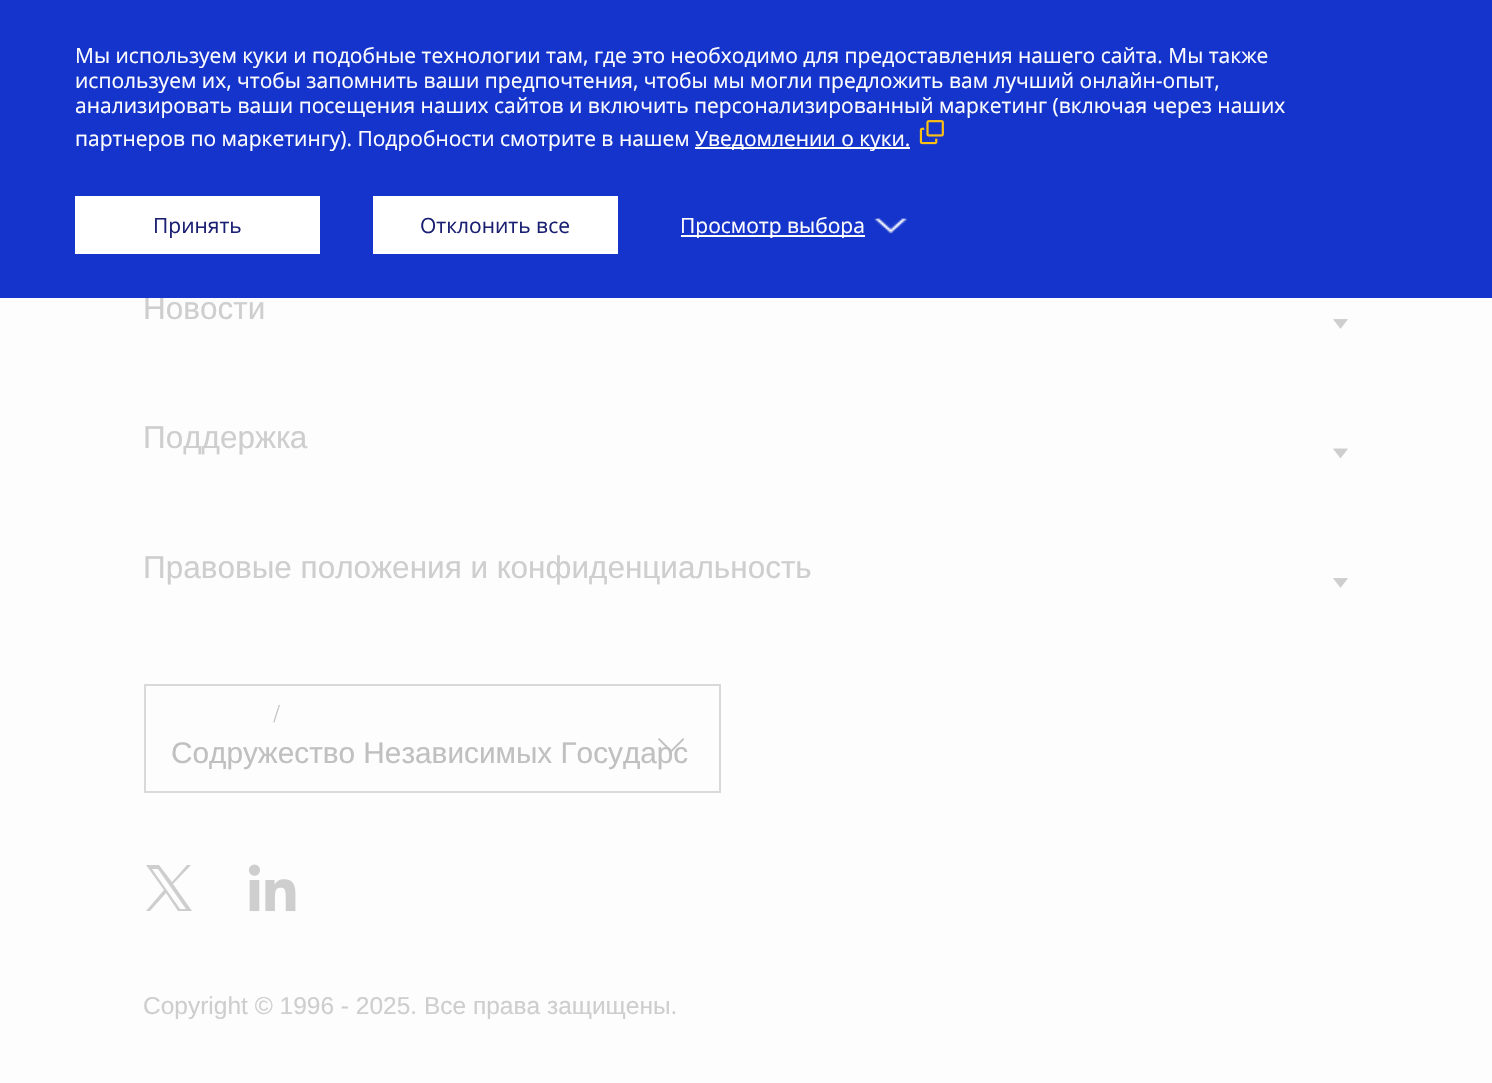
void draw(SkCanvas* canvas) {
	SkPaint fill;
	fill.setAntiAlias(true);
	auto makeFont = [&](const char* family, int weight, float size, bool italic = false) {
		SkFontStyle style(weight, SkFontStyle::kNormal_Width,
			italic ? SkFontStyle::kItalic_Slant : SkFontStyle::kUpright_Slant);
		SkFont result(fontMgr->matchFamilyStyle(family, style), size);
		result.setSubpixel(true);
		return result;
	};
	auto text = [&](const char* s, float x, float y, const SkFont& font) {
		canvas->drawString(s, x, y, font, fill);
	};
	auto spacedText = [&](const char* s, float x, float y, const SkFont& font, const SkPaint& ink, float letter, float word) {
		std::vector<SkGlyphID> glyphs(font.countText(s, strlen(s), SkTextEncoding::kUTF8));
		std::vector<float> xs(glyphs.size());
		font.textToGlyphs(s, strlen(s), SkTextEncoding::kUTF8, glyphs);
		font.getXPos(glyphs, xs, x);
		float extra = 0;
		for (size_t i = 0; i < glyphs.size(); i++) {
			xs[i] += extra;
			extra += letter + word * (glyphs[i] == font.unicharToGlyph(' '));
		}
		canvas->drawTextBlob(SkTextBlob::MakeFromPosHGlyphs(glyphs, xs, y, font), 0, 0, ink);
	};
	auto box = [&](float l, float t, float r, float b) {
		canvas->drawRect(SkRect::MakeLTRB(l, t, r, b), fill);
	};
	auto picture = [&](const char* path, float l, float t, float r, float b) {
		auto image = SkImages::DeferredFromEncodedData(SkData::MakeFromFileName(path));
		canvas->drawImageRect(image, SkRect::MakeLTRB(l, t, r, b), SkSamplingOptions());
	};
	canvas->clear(0xFFFDFDFD);
	picture("image2.png", 1333, 319, 1348, 329);
	picture("image3.png", 1333, 448, 1348, 459);
	picture("image2.png", 1333, 578, 1348, 588);
	fill.setStyle(SkPaint::kStroke_Style);
	fill.setStrokeWidth(2);
	fill.setColor(0xFFD9D9D9);
	canvas->drawRect(SkRect::MakeLTRB(145, 685, 720, 792), fill);
	fill.setStyle(SkPaint::kFill_Style);
	fill.setColor(0xFFCECECE);
	canvas->drawPath(SkPathBuilder().moveTo(191, 865).lineTo(173, 884).lineTo(192, 911).lineTo(178, 911).lineTo(166, 893).lineTo(150, 911).lineTo(146, 911).lineTo(164, 890).lineTo(146, 865).lineTo(159, 865).lineTo(172, 882).lineTo(187, 865).close().moveTo(166, 889).lineTo(180, 909).lineTo(186, 909).lineTo(158, 869).lineTo(152, 869).close().detach(), fill);
	picture("image5.png", 248, 864, 296, 912);
	auto font1 = makeFont("Liberation Sans", 400, 31.5f);
	text("Новости", 143, 319, font1);
	fill.setColor(0xFF1434CB);
	box(0, 0, 1492, 298);
	picture("image1.png", 874, 218, 907, 234);
	fill.setColor(0xFFFFFFFF);
	box(681, 235, 865, 237);
	auto font2 = makeFont("Open Sans", 400, 21);
	text("Просмотр выбора", 680, 233, font2);
	box(373, 196, 618, 254);
	fill.setColor(0xFF1A1F72);
	text("Отклонить все", 420, 233, font2);
	fill.setColor(0xFFFFFFFF);
	box(75, 196, 320, 254);
	fill.setColor(0xFF1A1F72);
	text("Принять", 153, 233, font2);
	picture("image0.png", 919, 120, 944, 145);
	fill.setColor(0xFFFFFFFF);
	box(695, 147, 910, 149);
	text("Уведомлении о куки.", 695, 146, font2);
	text("партнеров по маркетингу). Подробности смотрите в нашем", 75, 146, font2);
	text("анализировать ваши посещения наших сайтов и включить персонализированный маркетинг (включая через наших", 75, 113, font2);
	text("используем их, чтобы запомнить ваши предпочтения, чтобы мы могли предложить вам лучший онлайн-опыт,", 75, 88, font2);
	text("Мы используем куки и подобные технологии там, где это необходимо для предоставления нашего сайта. Мы также", 75, 63, font2);
	fill.setColor(0xFFCECECE);
	text("Поддержка", 143, 448, font1);
	text("Правовые положения и конфиденциальность", 143, 578, font1);
	auto font3 = makeFont("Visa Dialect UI", 300, 21);
	fill.setColor(0xFFC0C0C0);
	spacedText("Выбрать страну/регион", 171, 720, font3, fill, 0, 98);
	auto font4 = makeFont("Liberation Sans", 400, 29.75f);
	text("Содружество Независимых Государс", 171, 763, font4);
	picture("image4.png", 658, 738, 685, 753);
	auto font5 = makeFont("Liberation Sans", 400, 24.5f);
	fill.setColor(0xFFCECECE);
	text("Copyright © 1996 - 2025. Все права защищены.", 143, 1014, font5);
}
